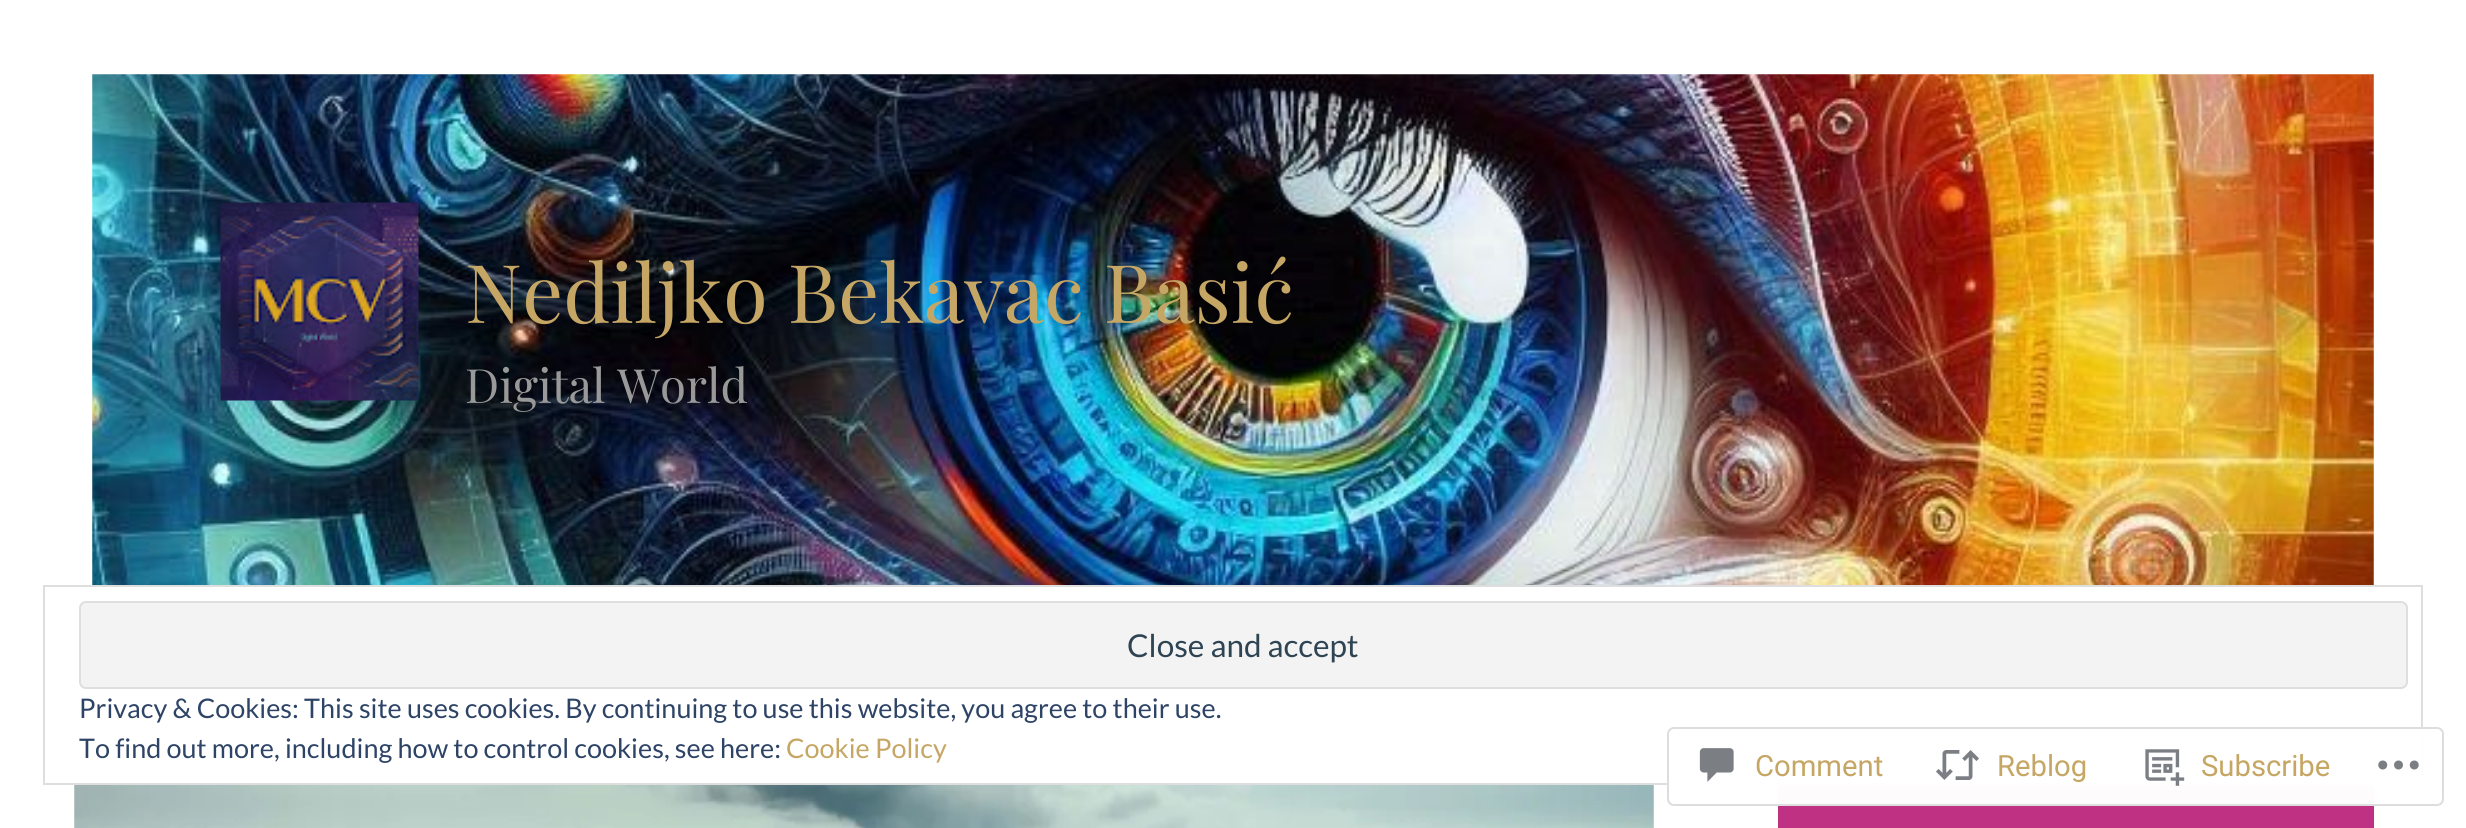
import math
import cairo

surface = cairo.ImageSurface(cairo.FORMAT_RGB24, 2466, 828)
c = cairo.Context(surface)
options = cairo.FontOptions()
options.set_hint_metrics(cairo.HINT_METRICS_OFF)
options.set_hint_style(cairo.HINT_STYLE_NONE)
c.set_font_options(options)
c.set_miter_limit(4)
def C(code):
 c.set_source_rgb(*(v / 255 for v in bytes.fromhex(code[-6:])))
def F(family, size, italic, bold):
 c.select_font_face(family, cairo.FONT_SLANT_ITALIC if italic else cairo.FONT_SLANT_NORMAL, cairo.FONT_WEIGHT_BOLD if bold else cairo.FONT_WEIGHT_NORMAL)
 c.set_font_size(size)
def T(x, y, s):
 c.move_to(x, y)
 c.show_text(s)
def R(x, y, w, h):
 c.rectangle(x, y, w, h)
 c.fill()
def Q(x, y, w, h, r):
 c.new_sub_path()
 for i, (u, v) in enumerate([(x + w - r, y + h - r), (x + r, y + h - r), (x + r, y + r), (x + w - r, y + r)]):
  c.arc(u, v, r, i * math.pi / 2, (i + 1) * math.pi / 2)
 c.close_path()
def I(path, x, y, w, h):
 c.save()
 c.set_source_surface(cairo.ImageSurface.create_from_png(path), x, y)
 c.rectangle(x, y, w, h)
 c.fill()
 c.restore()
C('ffffff')
c.paint()
I('1.png',92,74,2282,511)
I('2.png',220,202,199,199)
F('Playfair Display',81,0,0)
C('c6a664')
T(465,323,'Nediljko Bekavac Basić')
F('Playfair Display',47.25,0,0)
C('999999')
T(465,403,'Digital World')
I('3.png',74,785,1580,43)
C('be3183')
R(1778,790,596,38)
C('d74e51')
R(1778,785,596,5)
c.rectangle(44,586,2378,198)
C('dedede')
c.stroke()
C('f3f3f3')
Q(80,602,2327,86,6)
c.fill_preserve()
C('dedede')
c.stroke()
F('Lato',31.5,0,0)
C('2e4453')
T(1127,657,'Close and accept')
F('Lato',27,0,0)
C('2e4467')
T(79,718,'Privacy & Cookies: This site uses cookies. By continuing to use this website, you agree to their use.')
T(79,758,'To find out more, including how to control cookies, see here:')
C('c6a664')
T(786,758,'Cookie Policy')
c.set_source_rgba(1,1,1,0.98)
Q(1667,727,777,79,7)
c.fill()
Q(1668,728,775,77,6)
c.set_source_rgba(0.863,0.863,0.871,0.98)
c.stroke()
I('4.png',1699,748,35,34)
F('Roboto',29.25,0,0)
C('c6a664')
T(1755,776,'Comment')
I('5.png',1936,750,43,30)
T(1997,776,'Reblog')
I('6.png',2145,749,40,37)
T(2201,776,'Subscribe')
I('7.png',2378,760,41,10)
surface.write_to_png('o.png')
